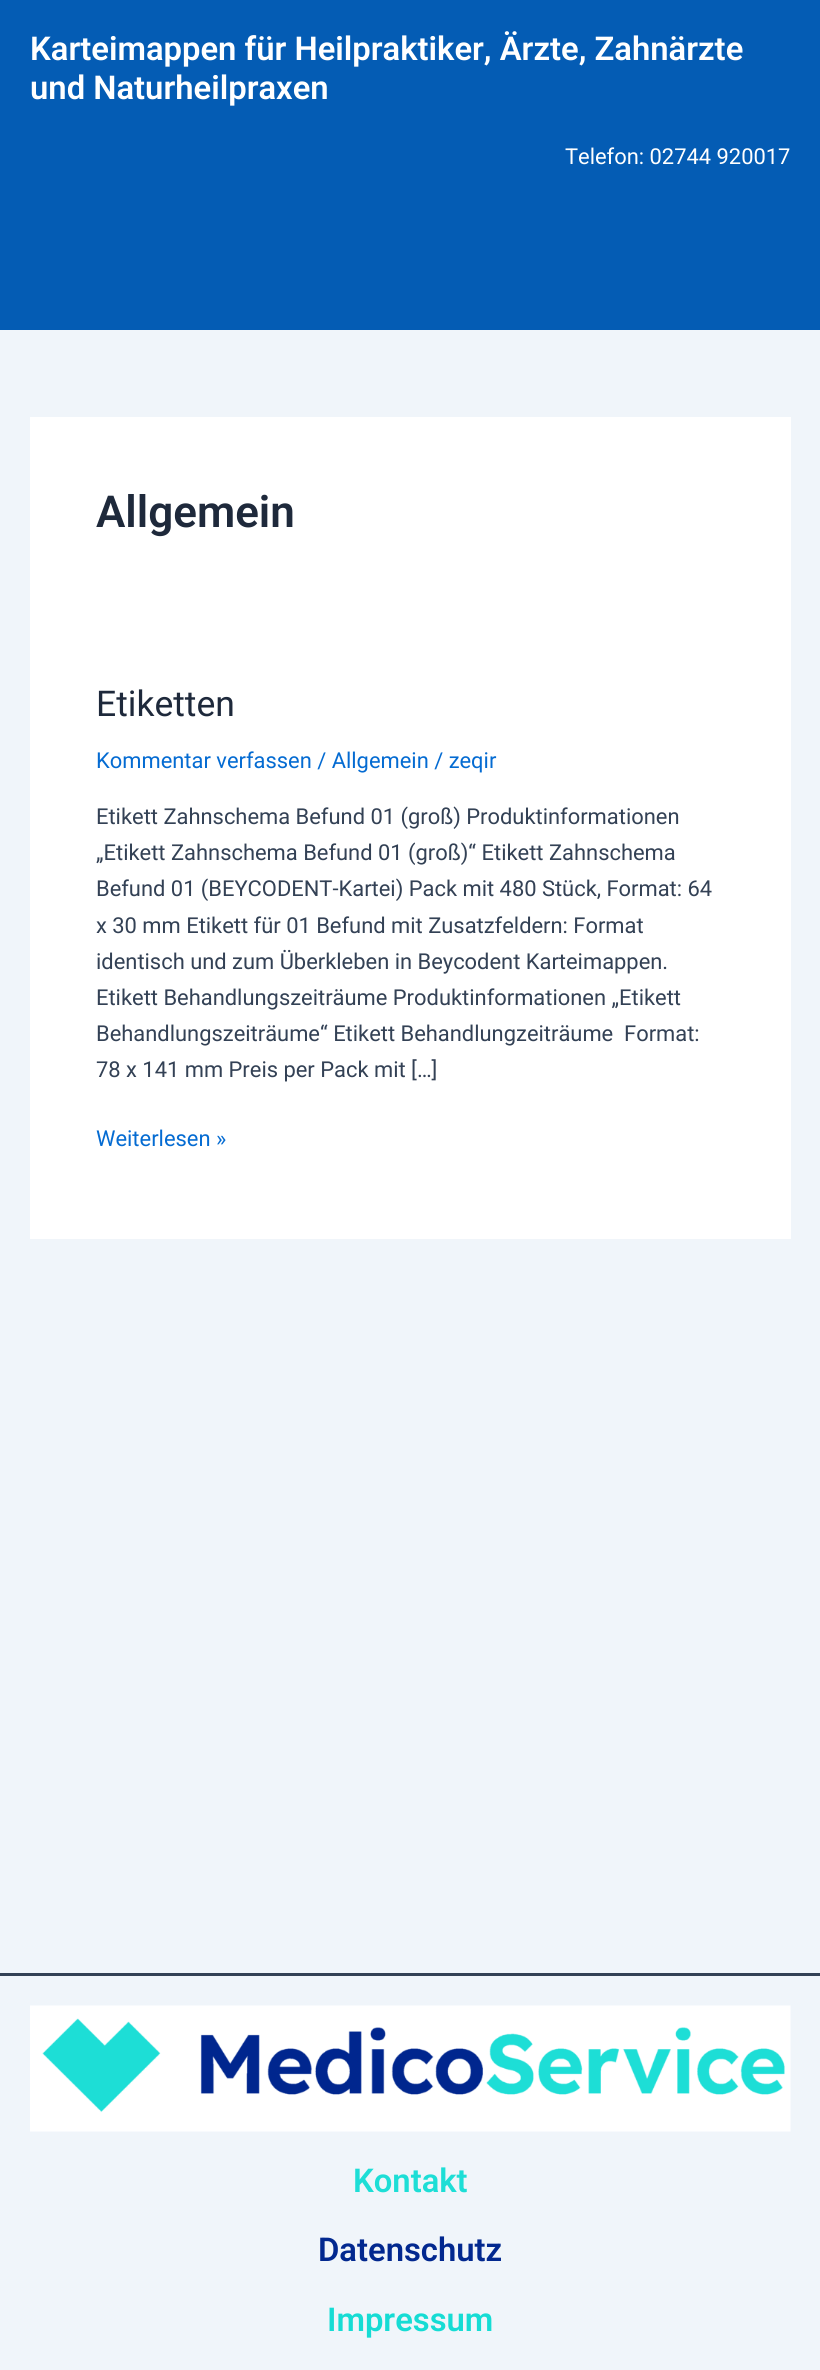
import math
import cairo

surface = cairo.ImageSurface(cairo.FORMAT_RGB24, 820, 2370)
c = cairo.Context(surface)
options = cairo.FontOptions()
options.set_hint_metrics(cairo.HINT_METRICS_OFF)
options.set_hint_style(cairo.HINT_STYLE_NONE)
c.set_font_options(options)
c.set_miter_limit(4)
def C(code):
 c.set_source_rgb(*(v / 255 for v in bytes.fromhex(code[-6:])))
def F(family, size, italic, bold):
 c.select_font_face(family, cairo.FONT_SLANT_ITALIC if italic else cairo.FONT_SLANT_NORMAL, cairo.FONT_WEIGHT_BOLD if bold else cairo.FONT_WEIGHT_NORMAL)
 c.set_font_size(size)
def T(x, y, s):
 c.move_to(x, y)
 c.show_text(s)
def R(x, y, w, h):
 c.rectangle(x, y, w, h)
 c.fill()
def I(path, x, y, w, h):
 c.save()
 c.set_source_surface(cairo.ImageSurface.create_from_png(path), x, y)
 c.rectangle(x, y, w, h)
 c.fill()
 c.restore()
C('f0f5fa')
c.paint()
C('045cb4')
R(0,0,820,330)
F('Roboto SemiBold',32.8,0,0)
C('ffffff')
T(30,60,'Karteimappen für Heilpraktiker, Ärzte, Zahnärzte')
T(30,99,'und Naturheilpraxen')
F('Roboto',21.9,0,0)
T(565,164,'Telefon: 02744 920017')
R(30,417,761,822)
F('Roboto SemiBold',44,0,0)
C('1e293b')
T(96,527,'Allgemein')
F('Roboto',35.5,0,0)
T(96,716,'Etiketten')
F('Roboto',21.9,0,0)
C('046bd2')
T(96,768,'Kommentar verfassen / Allgemein / zeqir')
C('334155')
T(96,824,'Etikett Zahnschema Befund 01 (groß) Produktinformationen')
T(96,860,'„Etikett Zahnschema Befund 01 (groß)“ Etikett Zahnschema')
T(96,896,'Befund 01 (BEYCODENT-Kartei) Pack mit 480 Stück, Format: 64')
T(96,933,'x 30 mm Etikett für 01 Befund mit Zusatzfeldern: Format')
T(96,969,'identisch und zum Überkleben in Beycodent Karteimappen.')
T(96,1005,'Etikett Behandlungszeiträume Produktinformationen „Etikett')
T(96,1041,'Behandlungszeiträume“ Etikett Behandlungzeiträume  Format:')
T(96,1077,'78 x 141 mm Preis per Pack mit […]')
C('046bd2')
T(96,1146,'Weiterlesen »')
C('334155')
R(0,1973,820,3)
I('1.png',30,2005,761,127)
F('Roboto SemiBold',32.8,0,0)
C('1dded6')
T(353,2192,'Kontakt')
C('02288f')
T(318,2261,'Datenschutz')
C('16dcd4')
T(327,2331,'Impressum')
surface.write_to_png('o.png')
